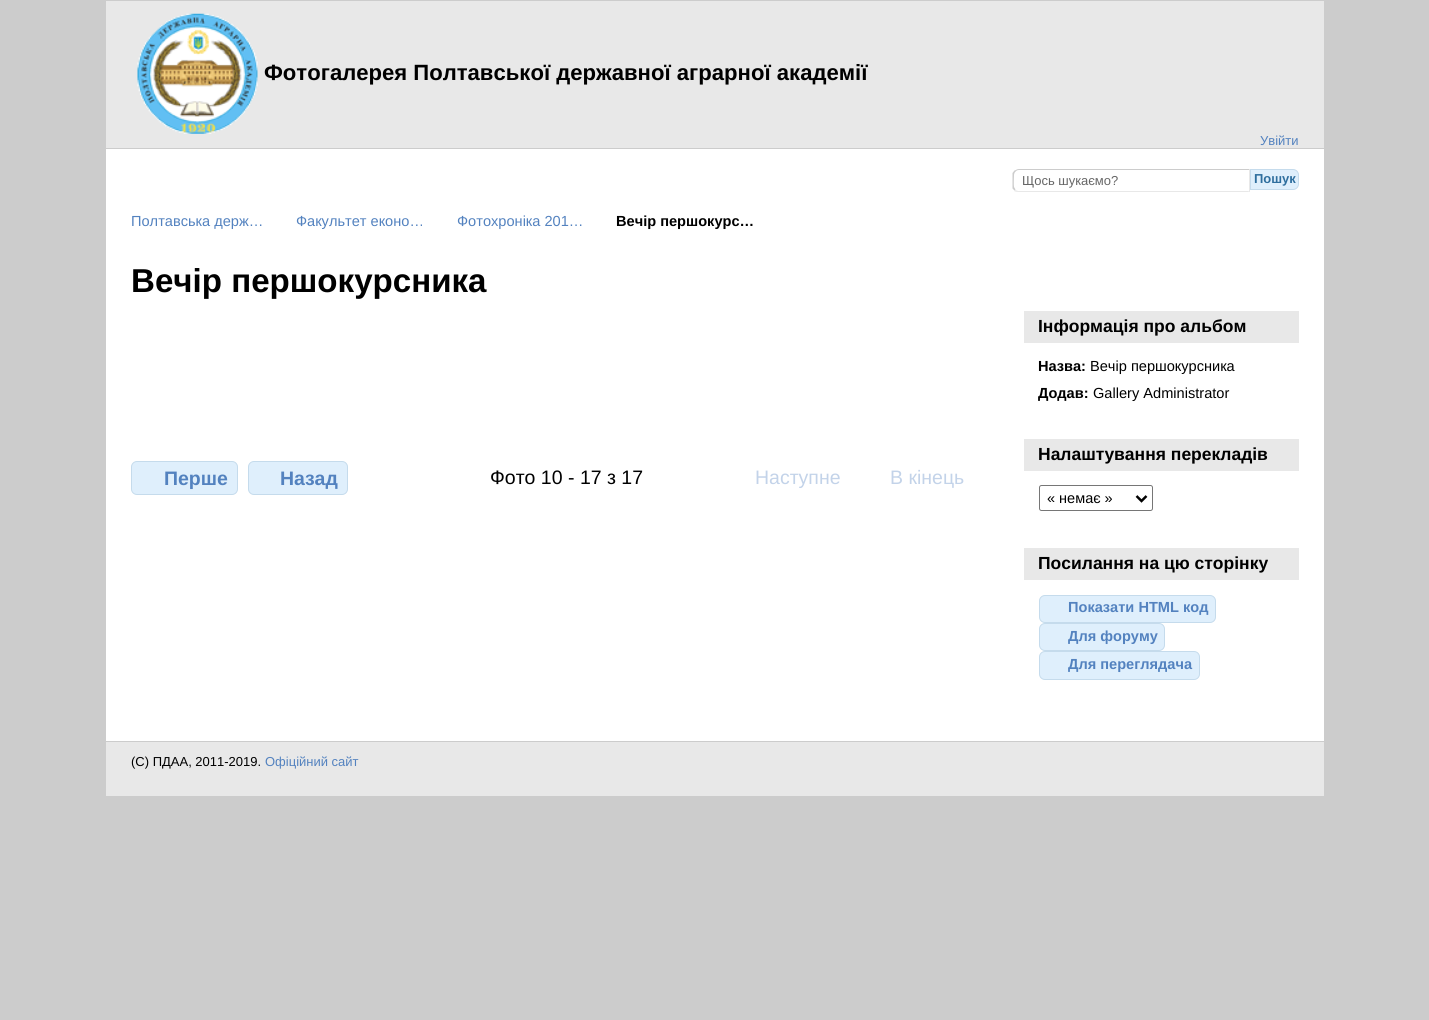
import math
import cairo

surface = cairo.ImageSurface(cairo.FORMAT_RGB24, 1429, 1020)
c = cairo.Context(surface)
options = cairo.FontOptions()
options.set_hint_metrics(cairo.HINT_METRICS_OFF)
options.set_hint_style(cairo.HINT_STYLE_NONE)
c.set_font_options(options)
c.set_miter_limit(4)
def C(code):
 c.set_source_rgb(*(v / 255 for v in bytes.fromhex(code[-6:])))
def F(family, size, italic, bold):
 c.select_font_face(family, cairo.FONT_SLANT_ITALIC if italic else cairo.FONT_SLANT_NORMAL, cairo.FONT_WEIGHT_BOLD if bold else cairo.FONT_WEIGHT_NORMAL)
 c.set_font_size(size)
def T(x, y, s):
 c.move_to(x, y)
 c.show_text(s)
def R(x, y, w, h):
 c.rectangle(x, y, w, h)
 c.fill()
def Q(x, y, w, h, r):
 c.new_sub_path()
 for i, (u, v) in enumerate([(x + w - r, y + h - r), (x + r, y + h - r), (x + r, y + r), (x + w - r, y + r)]):
  c.arc(u, v, r, i * math.pi / 2, (i + 1) * math.pi / 2)
 c.close_path()
def I(path, x, y, w, h):
 c.save()
 c.set_source_surface(cairo.ImageSurface.create_from_png(path), x, y)
 c.rectangle(x, y, w, h)
 c.fill()
 c.restore()
C('cccccc')
c.paint()
C('ffffff')
R(106,149,1218,592)
C('e8e8e8')
R(106,1,1218,147)
I('1.png',137,13,121,121)
F('Liberation Sans',22.1,0,1)
C('000000')
T(264,80,'Фотогалерея Полтавської державної аграрної академії')
F('Liberation Sans',13,0,0)
C('5382bf')
T(1260,145,'Увійти')
C('cccccc')
c.new_path()
c.move_to(1019,169)
c.curve_to(1017,169,1016,170,1014,171)
c.line_to(1015,172)
c.curve_to(1016,171,1017,170,1019,170)
c.line_to(1249,170)
c.line_to(1250,169)
c.close_path()
c.fill()
C('e8e8e8')
c.new_path()
c.move_to(1250,192)
c.line_to(1250,169)
c.line_to(1249,170)
c.line_to(1249,191)
c.line_to(1248.5,191)
c.line_to(1249.5,192)
c.close_path()
c.fill()
c.new_path()
c.move_to(1250,192)
c.line_to(1019,192)
c.curve_to(1017,192,1016,192,1014,191)
c.line_to(1015,190)
c.line_to(1018,191)
c.line_to(1248,191)
c.close_path()
c.fill()
C('cccccc')
c.new_path()
c.move_to(1012.5,173)
c.line_to(1014.5,170.5)
c.line_to(1015.5,171.5)
c.curve_to(1014.5,172.5,1014,174,1014,175)
c.curve_to(1014,177.5,1013.5,185,1014,187)
c.line_to(1015.5,189.5)
c.line_to(1014.5,190.5)
c.line_to(1012.5,188.5)
c.close_path()
c.fill()
C('666666')
T(1022,185,'Щось шукаємо?')
C('dfeffc')
c.new_path()
c.move_to(1250.5,169.5)
c.line_to(1293,169.5)
c.curve_to(1296,169.5,1298.5,172,1298.5,175)
c.line_to(1298.5,184)
c.curve_to(1298.5,187,1296,189.5,1293,189.5)
c.line_to(1250.5,189.5)
c.close_path()
c.fill_preserve()
C('c5dbec')
c.set_line_width(1)
c.stroke()
F('Liberation Sans',13,0,1)
C('2e6e9e')
T(1254,183,'Пошук')
F('Liberation Sans',14.6,0,0)
C('5382bf')
T(131,226,'Полтавська держ…')
T(296,226,'Факультет еконо…')
T(457,226,'Фотохроніка 201…')
F('Liberation Sans',14.6,0,1)
C('000000')
T(616,226,'Вечір першокурс…')
F('Liberation Sans',33.1,0,1)
T(131,292,'Вечір першокурсника')
C('dfeffc')
Q(131.5,461.5,106,33,5.5)
c.fill_preserve()
C('c5dbec')
c.stroke()
F('Liberation Sans',19.5,0,1)
C('5382bf')
T(164,485,'Перше')
C('dfeffc')
Q(248.5,461.5,99,33,5.5)
c.fill_preserve()
C('c5dbec')
c.stroke()
C('5382bf')
T(280,485,'Назад')
F('Liberation Sans',19.5,0,0)
C('000000')
T(490,484,'Фото 10 - 17 з 17')
C('c3d3e9')
T(755,484,'Наступне')
T(890,484,'В кінець')
C('e8e8e8')
R(1024,311,275,32)
F('Liberation Sans',17.5,0,1)
C('000000')
T(1038,332,'Інформація про альбом')
F('Liberation Sans',14.6,0,1)
T(1038,371,'Назва:')
F('Liberation Sans',14.6,0,0)
T(1090,371,'Вечір першокурсника')
F('Liberation Sans',14.6,0,1)
T(1038,398,'Додав:')
F('Liberation Sans',14.6,0,0)
T(1093,398,'Gallery Administrator')
C('e8e8e8')
R(1024,439,275,32)
F('Liberation Sans',17.5,0,1)
C('000000')
T(1038,460,'Налаштування перекладів')
Q(1039.5,485.5,113,25,2)
C('767676')
c.stroke()
c.new_path()
c.move_to(1136.5,496)
c.line_to(1141.5,501)
c.line_to(1146.5,496)
C('000000')
c.set_line_width(2.5)
c.stroke()
F('Liberation Sans',14.5,0,0)
T(1047,503,'« немає »')
C('e8e8e8')
R(1024,548,275,32)
F('Liberation Sans',17.5,0,1)
C('000000')
T(1038,569,'Посилання на цю сторінку')
C('dfeffc')
Q(1039.5,595.5,176,27,5.5)
c.fill_preserve()
C('c5dbec')
c.set_line_width(1)
c.stroke()
F('Liberation Sans',14.6,0,1)
C('5382bf')
T(1068,612,'Показати HTML код')
C('dfeffc')
Q(1039.5,623.5,125,27,5.5)
c.fill_preserve()
C('c5dbec')
c.stroke()
C('5382bf')
T(1068,641,'Для форуму')
C('dfeffc')
Q(1039.5,651.5,160,28,5.5)
c.fill_preserve()
C('c5dbec')
c.stroke()
C('5382bf')
T(1068,669,'Для переглядача')
C('e8e8e8')
R(106,742,1218,54)
F('Liberation Sans',13,0,0)
C('000000')
T(131,766,'(C) ПДАА, 2011-2019.')
C('5382bf')
T(265,766,'Офіційний сайт')
surface.write_to_png('o.png')
